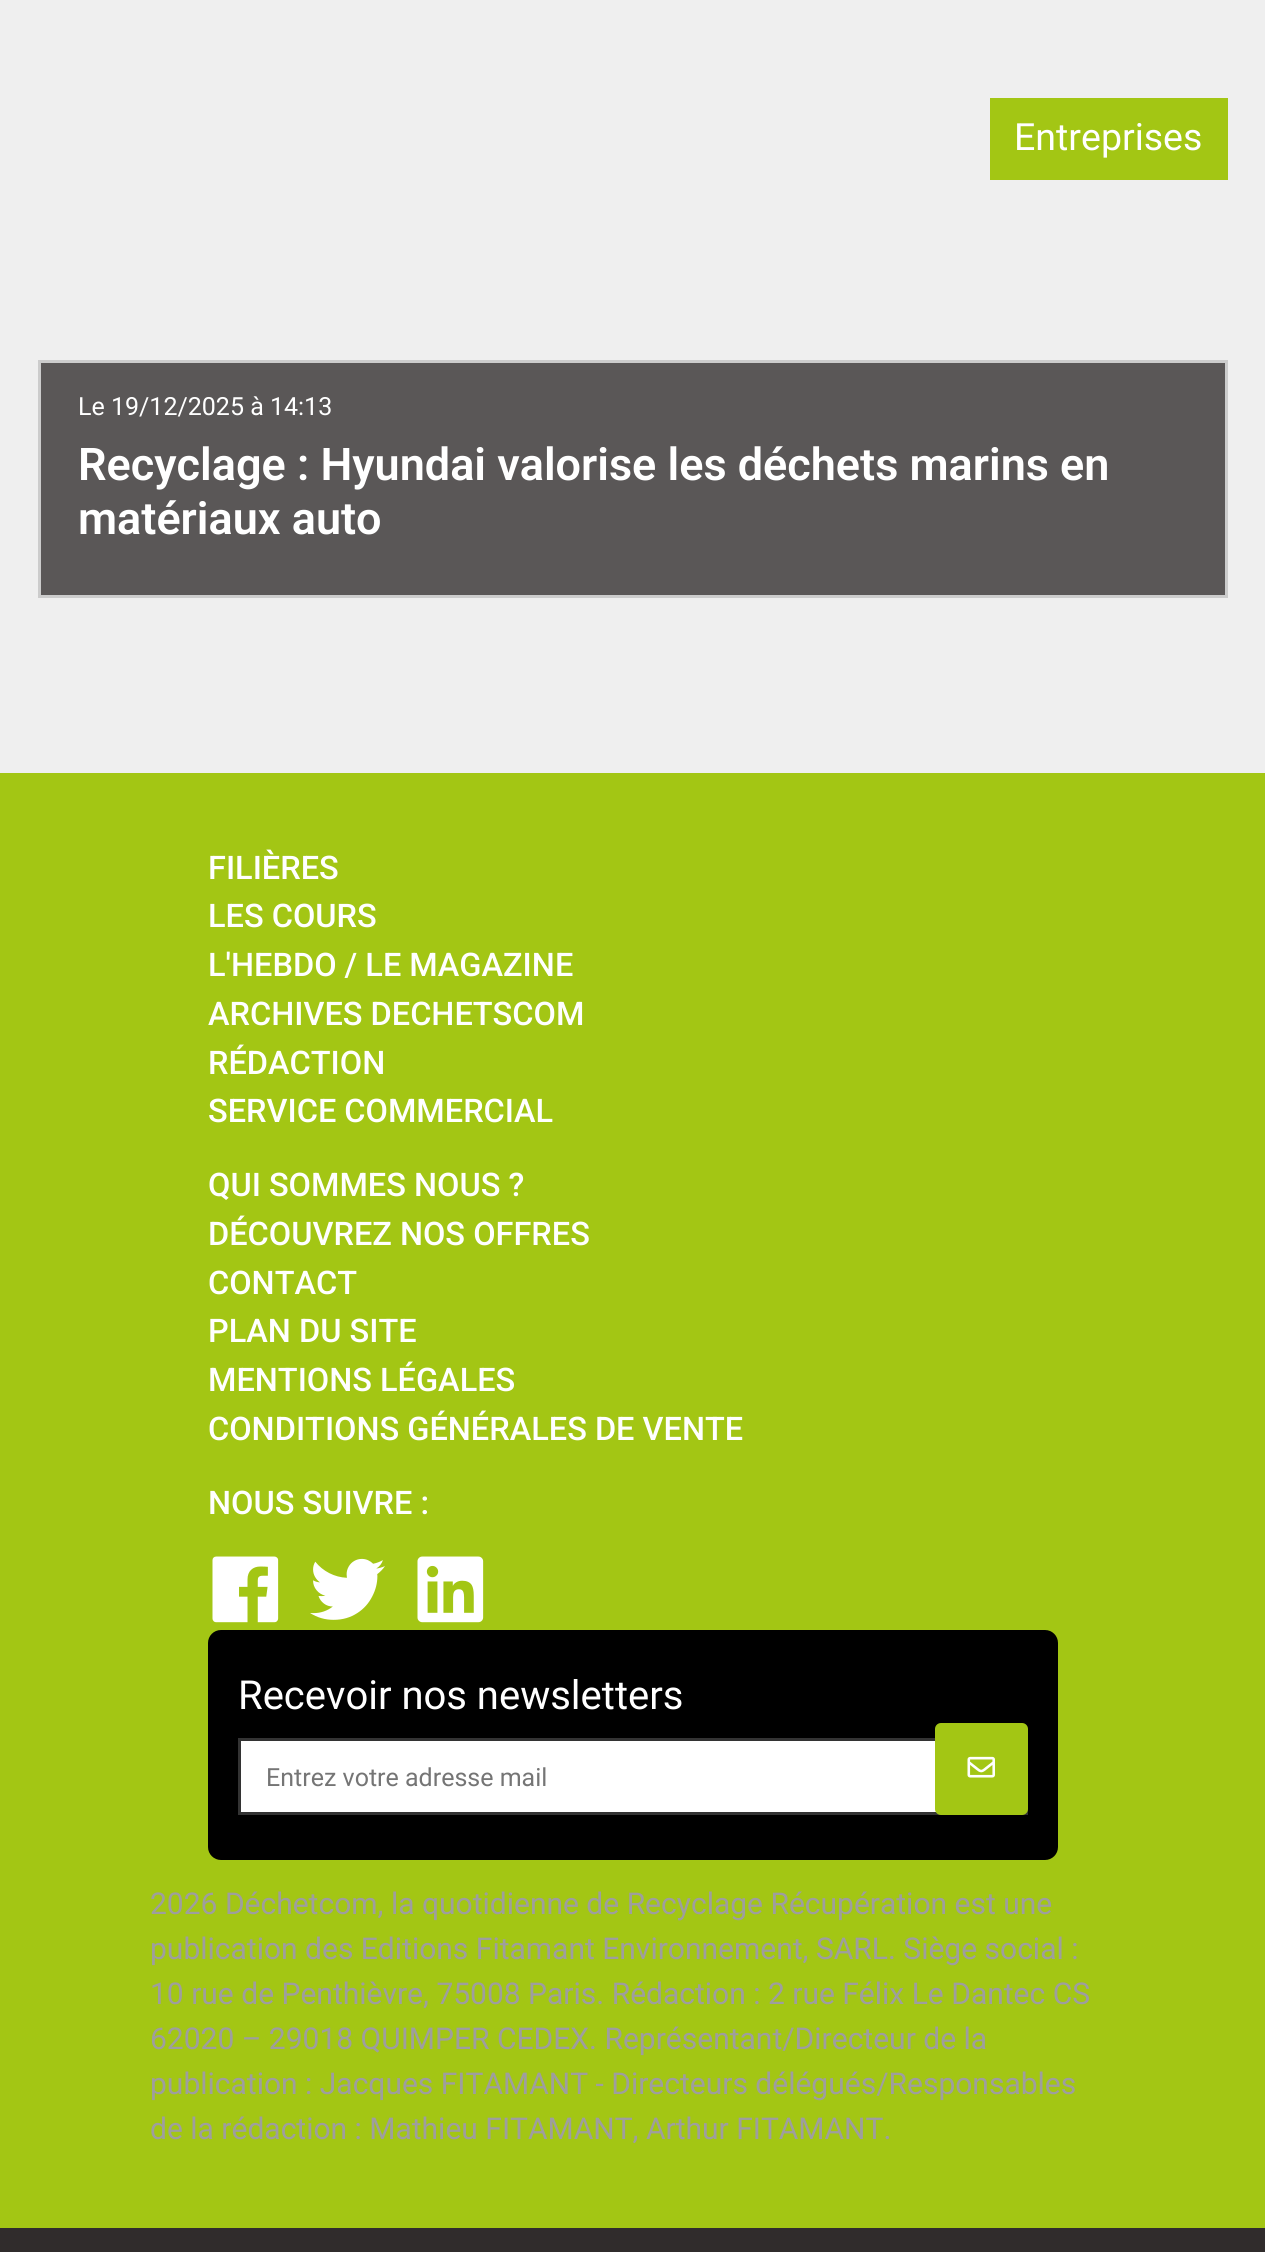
import math
import cairo

surface = cairo.ImageSurface(cairo.FORMAT_RGB24, 1265, 2252)
c = cairo.Context(surface)
options = cairo.FontOptions()
options.set_hint_metrics(cairo.HINT_METRICS_OFF)
options.set_hint_style(cairo.HINT_STYLE_NONE)
c.set_font_options(options)
c.set_miter_limit(4)
def C(code):
 c.set_source_rgb(*(v / 255 for v in bytes.fromhex(code[-6:])))
def F(family, size, italic, bold):
 c.select_font_face(family, cairo.FONT_SLANT_ITALIC if italic else cairo.FONT_SLANT_NORMAL, cairo.FONT_WEIGHT_BOLD if bold else cairo.FONT_WEIGHT_NORMAL)
 c.set_font_size(size)
def T(x, y, s):
 c.move_to(x, y)
 c.show_text(s)
def R(x, y, w, h):
 c.rectangle(x, y, w, h)
 c.fill()
def Q(x, y, w, h, r):
 c.new_sub_path()
 for i, (u, v) in enumerate([(x + w - r, y + h - r), (x + r, y + h - r), (x + r, y + r), (x + w - r, y + r)]):
  c.arc(u, v, r, i * math.pi / 2, (i + 1) * math.pi / 2)
 c.close_path()
def I(path, x, y, w, h):
 c.save()
 c.set_source_surface(cairo.ImageSurface.create_from_png(path), x, y)
 c.rectangle(x, y, w, h)
 c.fill()
 c.restore()
C('efefef')
c.paint()
C('a3c614')
R(990,98,238,82)
F('Roboto',37.5,0,0)
C('ffffff')
T(1014,150,'Entreprises')
C('5a5757')
c.rectangle(39.5,361.5,1187,235)
c.fill_preserve()
C('cccccc')
c.set_line_width(3)
c.stroke()
F('Roboto',25,0,0)
C('ffffff')
T(78,415,'Le 19/12/2025 à 14:13')
F('Roboto SemiBold',45,0,0)
T(78,480,'Recyclage : Hyundai valorise les déchets marins en')
T(78,534,'matériaux auto')
C('302c2c')
R(0,2228,1265,24)
C('a3c614')
R(0,773,1265,1455)
F('Roboto Medium',32.5,0,0)
C('ffffff')
T(208,879,'FILIÈRES')
T(208,927,'LES COURS')
T(208,976,'L\'HEBDO / LE MAGAZINE')
T(208,1025,'ARCHIVES DECHETSCOM')
T(208,1074,'RÉDACTION')
T(208,1122,'SERVICE COMMERCIAL')
T(208,1196,'QUI SOMMES NOUS ?')
T(208,1245,'DÉCOUVREZ NOS OFFRES')
T(208,1294,'CONTACT')
T(208,1342,'PLAN DU SITE')
T(208,1391,'MENTIONS LÉGALES')
T(208,1440,'CONDITIONS GÉNÉRALES DE VENTE')
T(208,1514,'NOUS SUIVRE :')
I('1.png',212,1556,67,67)
I('2.png',310,1558,75,62)
I('3.png',417,1556,67,67)
C('000000')
Q(208,1630,850,230,13)
c.fill()
F('Roboto',40,0,0)
C('ffffff')
T(238,1709,'Recevoir nos newsletters')
R(241,1741,695,71)
c.rectangle(239.5,1739.5,787,74)
C('333333')
c.stroke()
F('Roboto',25,0,0)
C('757575')
T(266,1786,'Entrez votre adresse mail')
C('a3c614')
Q(935,1723,93,92,6)
c.fill()
I('4.png',967,1756,28,22)
F('Roboto',30,0,0)
C('9e9e9e')
T(150,1914,'2026 Déchetcom, la quotidienne de Recyclage Récupération est une')
T(150,1959,'publication des Editions Fitamant Environnement, SARL. Siège social :')
T(150,2004,'10 rue de Penthièvre, 75008 Paris. Rédaction : 2 rue Félix Le Dantec CS')
T(150,2049,'62020 – 29018 QUIMPER CEDEX. Représentant/Directeur de la')
T(150,2094,'publication : Jacques FITAMANT - Directeurs délégués/Responsables')
T(150,2139,'de la rédaction : Mathieu FITAMANT, Arthur FITAMANT.')
surface.write_to_png('o.png')
